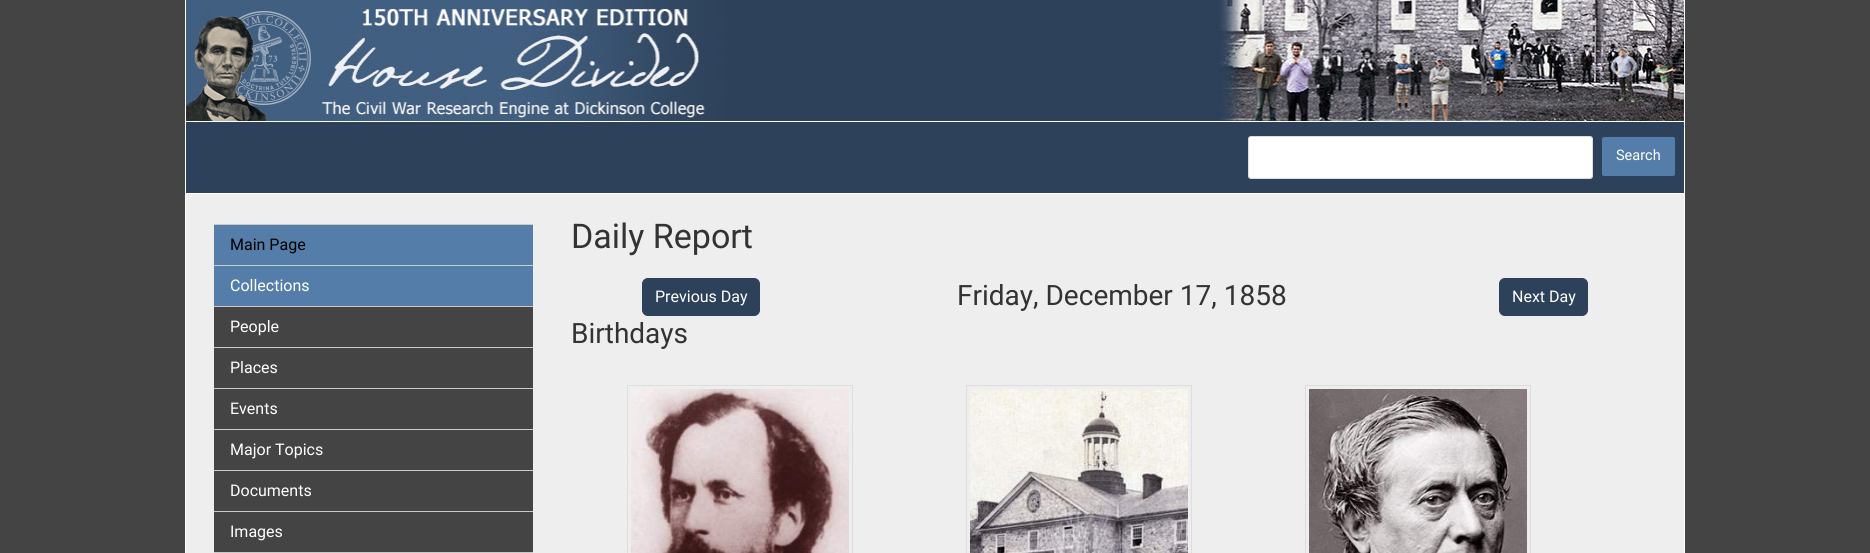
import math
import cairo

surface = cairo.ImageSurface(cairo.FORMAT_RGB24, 1870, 553)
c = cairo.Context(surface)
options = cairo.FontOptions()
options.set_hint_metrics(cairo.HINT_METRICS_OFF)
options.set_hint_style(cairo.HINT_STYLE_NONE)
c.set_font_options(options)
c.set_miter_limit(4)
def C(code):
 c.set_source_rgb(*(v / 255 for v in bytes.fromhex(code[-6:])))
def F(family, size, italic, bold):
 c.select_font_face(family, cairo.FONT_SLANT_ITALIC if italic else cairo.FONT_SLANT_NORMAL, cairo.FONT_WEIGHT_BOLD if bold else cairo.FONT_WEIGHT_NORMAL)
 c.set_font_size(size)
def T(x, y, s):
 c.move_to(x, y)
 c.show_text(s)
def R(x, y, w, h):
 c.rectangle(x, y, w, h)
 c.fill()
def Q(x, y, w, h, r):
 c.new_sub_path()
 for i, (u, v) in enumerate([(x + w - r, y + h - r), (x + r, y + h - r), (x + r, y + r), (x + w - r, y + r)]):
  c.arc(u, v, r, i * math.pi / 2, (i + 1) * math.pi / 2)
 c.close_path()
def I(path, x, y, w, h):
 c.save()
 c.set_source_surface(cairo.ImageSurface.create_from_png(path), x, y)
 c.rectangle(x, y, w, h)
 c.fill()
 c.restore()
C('444444')
c.paint()
C('ffffff')
R(185,0,1500,553)
I('1.png',186,0,1498,121)
C('2d415a')
R(186,122,1498,71)
C('ffffff')
Q(1248.5,136.5,344,42,2.5)
c.fill_preserve()
C('dddddd')
c.set_line_width(1)
c.stroke()
C('547ea9')
Q(1601.5,136.5,74,40,2.5)
c.fill_preserve()
C('2d415a')
c.stroke()
F('Roboto',14.5,0,0)
C('ffffff')
T(1616,160,'Search')
C('eeeeee')
R(186,194,1498,359)
C('cacaca')
R(214,224,319,1)
R(214,265,319,1)
C('547ea9')
R(214,225,319,40)
F('Roboto',16,0,0)
C('000000')
T(230,250,'Main Page')
C('cacaca')
R(214,306,319,1)
C('547ea9')
R(214,266,319,40)
C('ffffff')
T(230,291,'Collections')
C('cacaca')
R(214,347,319,1)
C('444444')
R(214,307,319,40)
C('ffffff')
T(230,332,'People')
C('cacaca')
R(214,388,319,1)
C('444444')
R(214,348,319,40)
C('ffffff')
T(230,373,'Places')
C('cacaca')
R(214,429,319,1)
C('444444')
R(214,389,319,40)
C('ffffff')
T(230,414,'Events')
C('cacaca')
R(214,470,319,1)
C('444444')
R(214,430,319,40)
C('ffffff')
T(230,455,'Major Topics')
C('cacaca')
R(214,511,319,1)
C('444444')
R(214,471,319,40)
C('ffffff')
T(230,496,'Documents')
C('cacaca')
R(214,552,319,1)
C('444444')
R(214,512,319,40)
C('ffffff')
T(230,537,'Images')
F('Roboto',34,0,0)
C('333333')
T(571,248,'Daily Report')
C('2d415a')
Q(642.5,278.5,117,37,5.5)
c.fill_preserve()
c.stroke()
F('Roboto',16,0,0)
C('ffffff')
T(655,302,'Previous Day')
F('Roboto',28,0,0)
C('333333')
T(957,305,'Friday, December 17, 1858')
C('2d415a')
Q(1499.5,278.5,88,37,5.5)
c.fill_preserve()
c.stroke()
F('Roboto',16,0,0)
C('ffffff')
T(1512,302,'Next Day')
F('Roboto',28,0,0)
C('333333')
T(571,343,'Birthdays')
c.rectangle(627.5,385.5,225,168)
C('dddddd')
c.stroke()
I('2.png',631,389,218,164)
c.rectangle(966.5,385.5,225,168)
c.stroke()
I('3.png',970,389,218,164)
c.rectangle(1305.5,385.5,225,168)
c.stroke()
I('4.png',1309,389,218,164)
surface.write_to_png('o.png')
